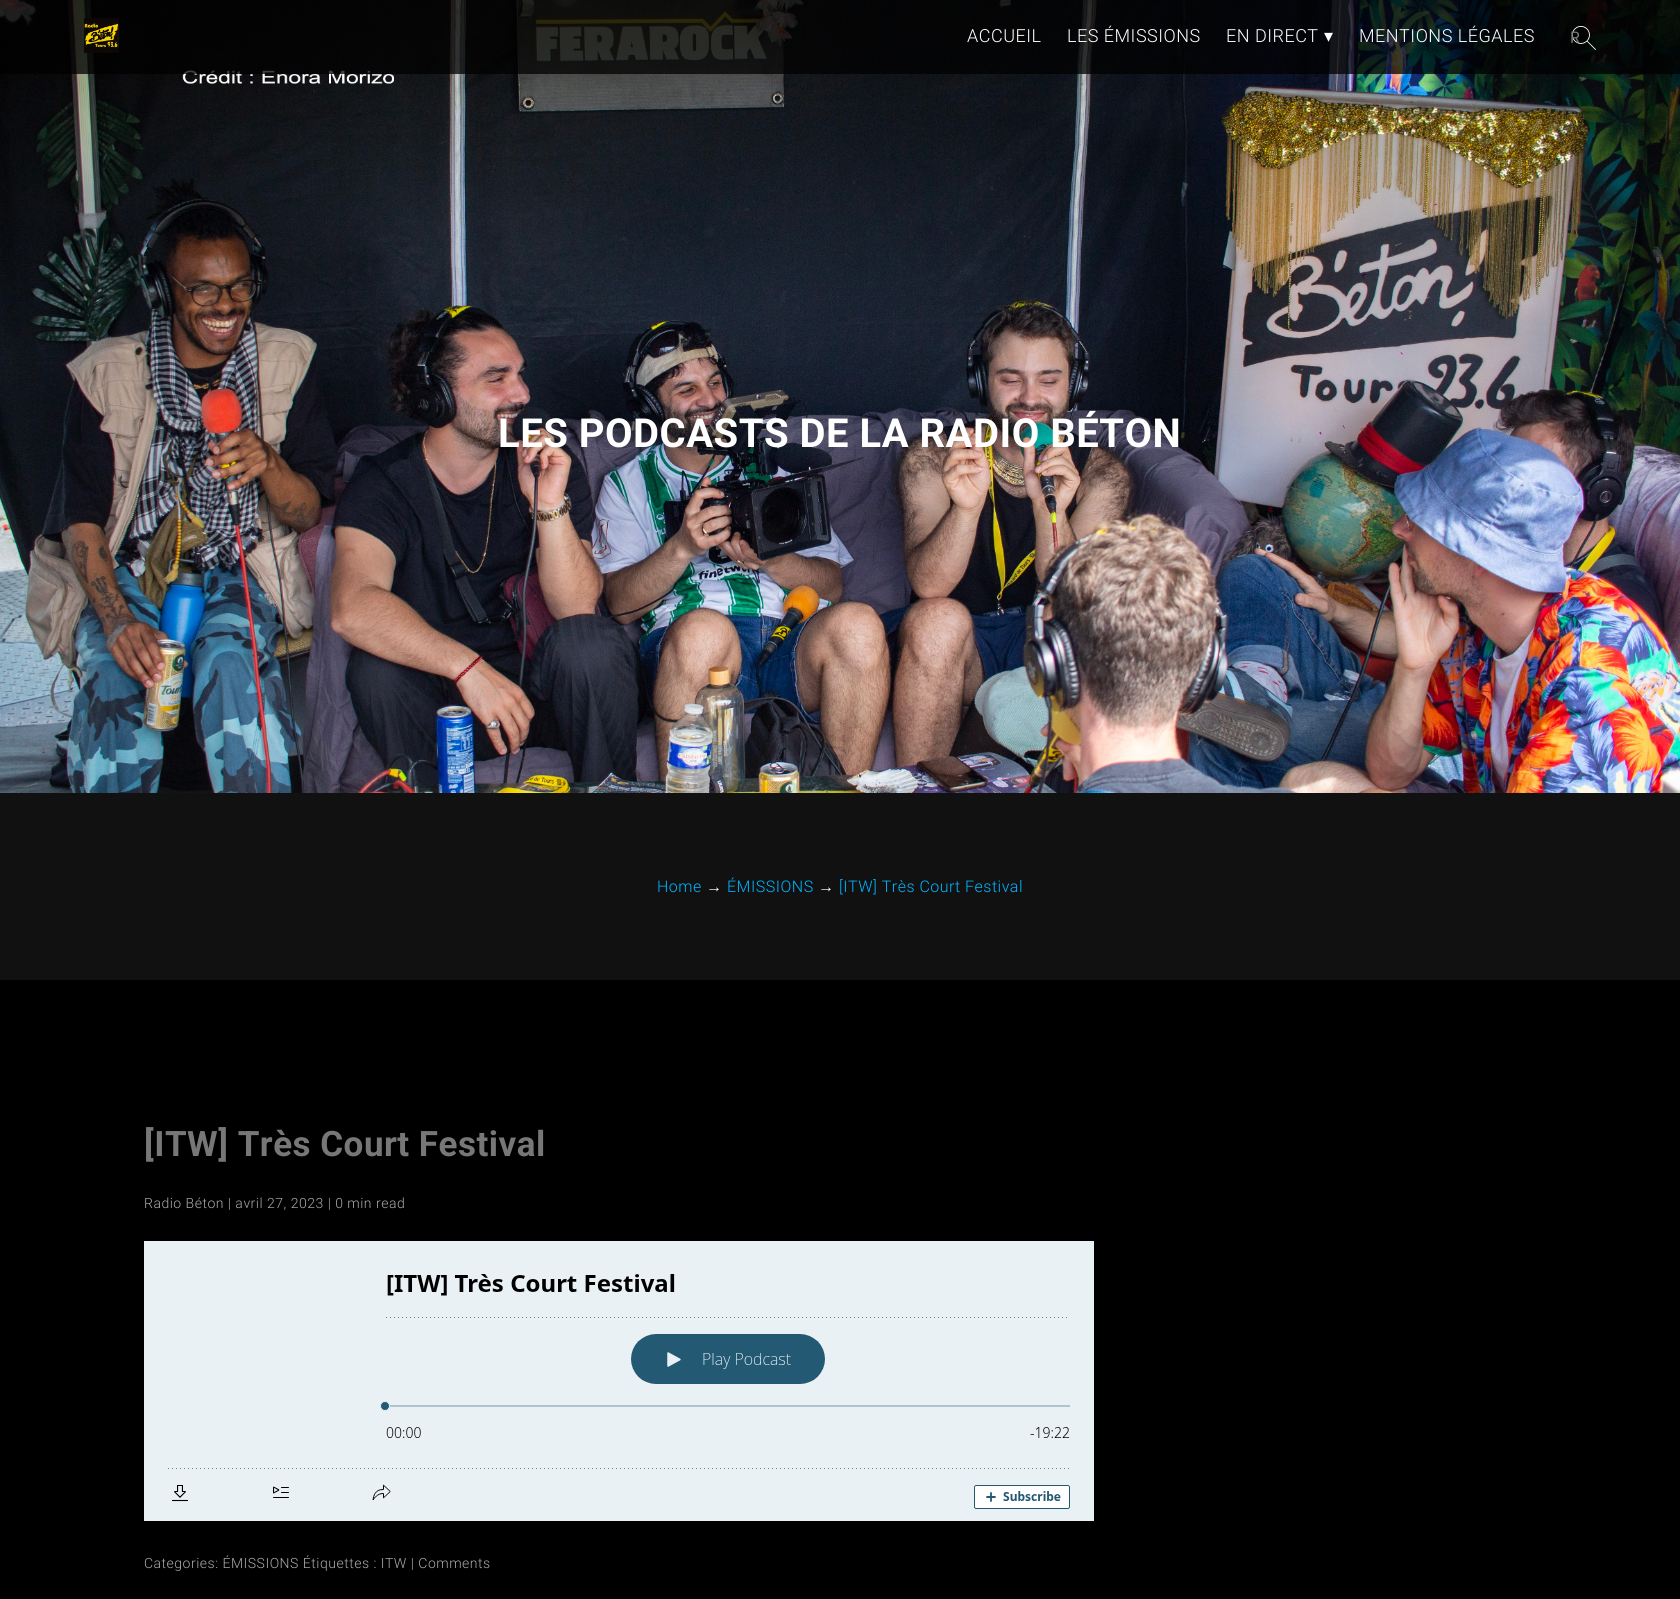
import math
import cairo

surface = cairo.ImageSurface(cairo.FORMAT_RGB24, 1680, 1599)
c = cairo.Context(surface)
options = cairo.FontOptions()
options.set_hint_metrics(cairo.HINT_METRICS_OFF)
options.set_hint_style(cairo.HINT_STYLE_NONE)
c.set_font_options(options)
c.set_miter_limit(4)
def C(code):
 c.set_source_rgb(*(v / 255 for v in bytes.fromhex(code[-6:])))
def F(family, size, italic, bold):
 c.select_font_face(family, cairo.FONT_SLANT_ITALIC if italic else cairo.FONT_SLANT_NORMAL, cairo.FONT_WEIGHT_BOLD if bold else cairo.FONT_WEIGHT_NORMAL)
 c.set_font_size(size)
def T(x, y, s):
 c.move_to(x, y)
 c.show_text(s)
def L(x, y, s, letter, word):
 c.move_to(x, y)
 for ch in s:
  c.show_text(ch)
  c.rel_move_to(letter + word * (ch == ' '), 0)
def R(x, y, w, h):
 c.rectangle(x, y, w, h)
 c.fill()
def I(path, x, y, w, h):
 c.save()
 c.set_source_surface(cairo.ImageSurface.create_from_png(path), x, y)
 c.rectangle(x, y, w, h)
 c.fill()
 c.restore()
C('111111')
c.paint()
I('1.png',0,0,1680,793)
c.set_source_rgba(0,0,0,0.75)
R(0,0,1680,74)
I('2.png',84,18,35,35)
F('Roboto Light',18,0,0)
C('ffffff')
L(967,42,'ACCUEIL',.5,0)
L(1067,42,'LES ÉMISSIONS',.5,0)
L(1226,42,'EN DIRECT',.5,0)
F('DejaVu Sans',18,0,0)
L(1324,42,'▾',.5,0)
F('Roboto Light',18,0,0)
L(1359,42,'MENTIONS LÉGALES',.5,0)
I('3.png',1572,26,24,24)
F('Roboto',16,0,0)
C('777777')
T(1570,43,'R')
F('Roboto',40,0,1)
C('ffffff')
L(498,447,'LES PODCASTS DE LA RADIO BÉTON',.5,0)
F('Roboto Light',16,0,0)
C('00b4ff')
L(657,892,'Home',.5,0)
F('Liberation Sans',16,0,0)
C('ffffff')
L(706,892,'→',.5,0)
F('Roboto Light',16,0,0)
C('00b4ff')
L(727,892,'ÉMISSIONS',.5,0)
F('Liberation Sans',16,0,0)
C('ffffff')
L(818,892,'→',.5,0)
F('Roboto Light',16,0,0)
C('00b4ff')
L(839,892,'[ITW] Très Court Festival',.5,0)
C('000000')
R(0,980,1680,619)
F('Roboto',35,0,1)
C('777777')
L(144,1156,'[ITW] Très Court Festival',.5,0)
F('Roboto Light',14,0,0)
C('aaaaaa')
L(144,1208,'Radio Béton | avril 27, 2023 | 0 min read',.5,0)
I('4.png',144,1241,950,280)
L(144,1568,'Categories: ÉMISSIONS Étiquettes : ITW | Comments',.5,0)
surface.write_to_png('o.png')
